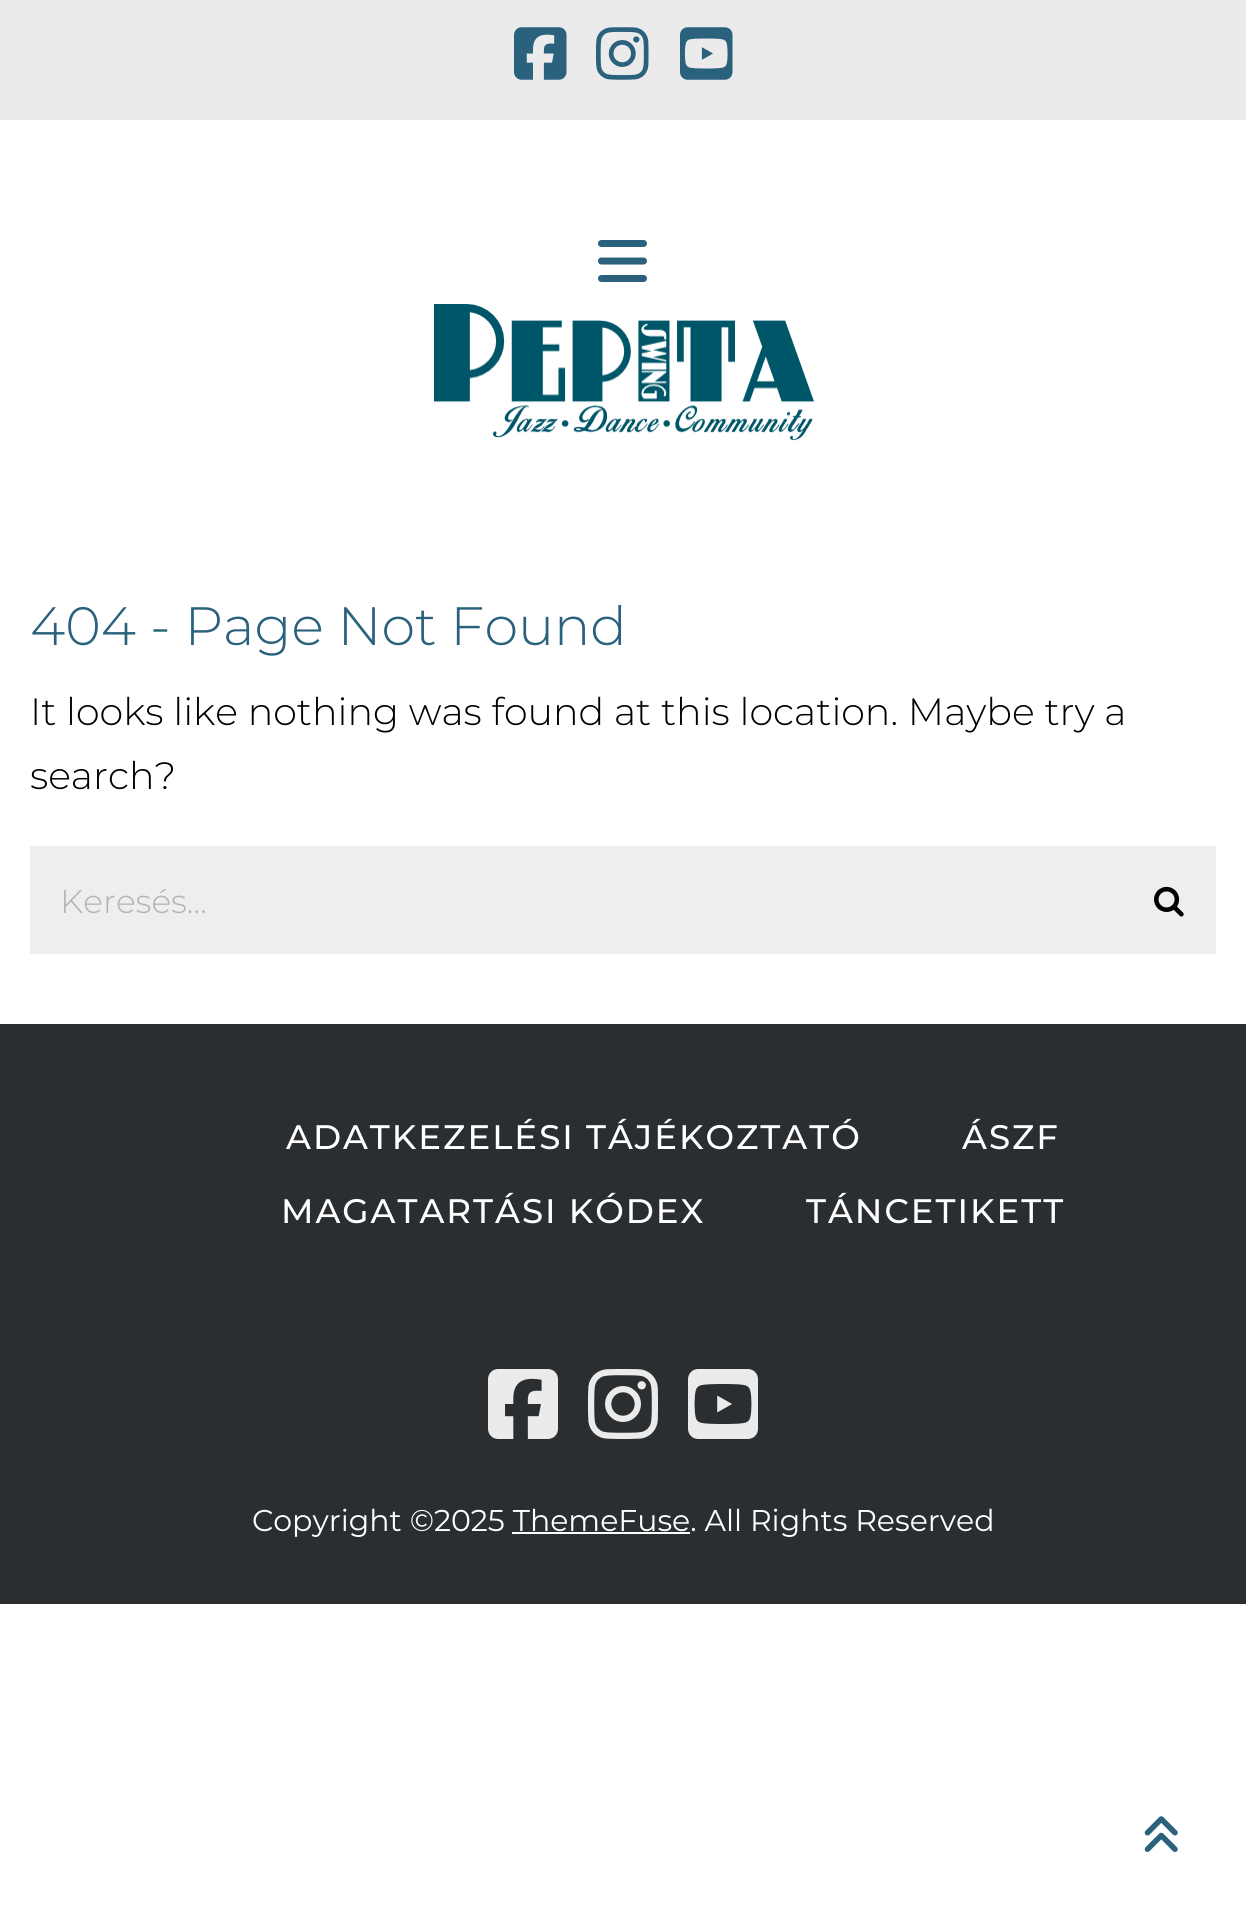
import math
import cairo

surface = cairo.ImageSurface(cairo.FORMAT_RGB24, 1246, 1917)
c = cairo.Context(surface)
options = cairo.FontOptions()
options.set_hint_metrics(cairo.HINT_METRICS_OFF)
options.set_hint_style(cairo.HINT_STYLE_NONE)
c.set_font_options(options)
c.set_miter_limit(4)
def C(code):
 c.set_source_rgb(*(v / 255 for v in bytes.fromhex(code[-6:])))
def F(family, size, italic, bold):
 c.select_font_face(family, cairo.FONT_SLANT_ITALIC if italic else cairo.FONT_SLANT_NORMAL, cairo.FONT_WEIGHT_BOLD if bold else cairo.FONT_WEIGHT_NORMAL)
 c.set_font_size(size)
def T(x, y, s):
 c.move_to(x, y)
 c.show_text(s)
def L(x, y, s, letter, word):
 c.move_to(x, y)
 for ch in s:
  c.show_text(ch)
  c.rel_move_to(letter + word * (ch == ' '), 0)
def R(x, y, w, h):
 c.rectangle(x, y, w, h)
 c.fill()
def I(path, x, y, w, h):
 c.save()
 c.set_source_surface(cairo.ImageSurface.create_from_png(path), x, y)
 c.rectangle(x, y, w, h)
 c.fill()
 c.restore()
C('ffffff')
c.paint()
C('ebebeb')
R(0,0,1246,120)
I('1.png',514,27,53,53)
I('2.png',596,27,53,53)
I('3.png',680,27,53,53)
I('4.png',598,240,49,42)
I('5.png',434,304,380,137)
F('Montserrat Light',54,0,0)
C('2a617c')
T(30,645,'404 - Page Not Found')
F('Montserrat Light',38,0,0)
C('000000')
T(30,725,'It looks like nothing was found at this location. Maybe try a')
T(30,789,'search?')
C('eeeeee')
R(30,846,1186,108)
F('Montserrat Light',33,0,0)
C('b3b3b3')
T(60,913,'Keresés…')
I('6.png',1154,886,30,31)
C('2a2e31')
R(0,1024,1246,580)
F('Montserrat Medium',34,0,0)
C('ffffff')
L(286,1149,'ADATKEZELÉSI TÁJÉKOZTATÓ',2,0)
L(962,1149,'ÁSZF',2,0)
L(281,1223,'MAGATARTÁSI KÓDEX',2,0)
L(806,1223,'TÁNCETIKETT',2,0)
I('7.png',488,1369,70,70)
I('8.png',588,1369,70,70)
I('9.png',688,1369,70,70)
F('Montserrat',30,0,0)
T(252,1531,'Copyright ©2025 ThemeFuse. All Rights Reserved')
R(512,1532,178,2)
I('10.png',1144,1816,34,36)
surface.write_to_png('o.png')
